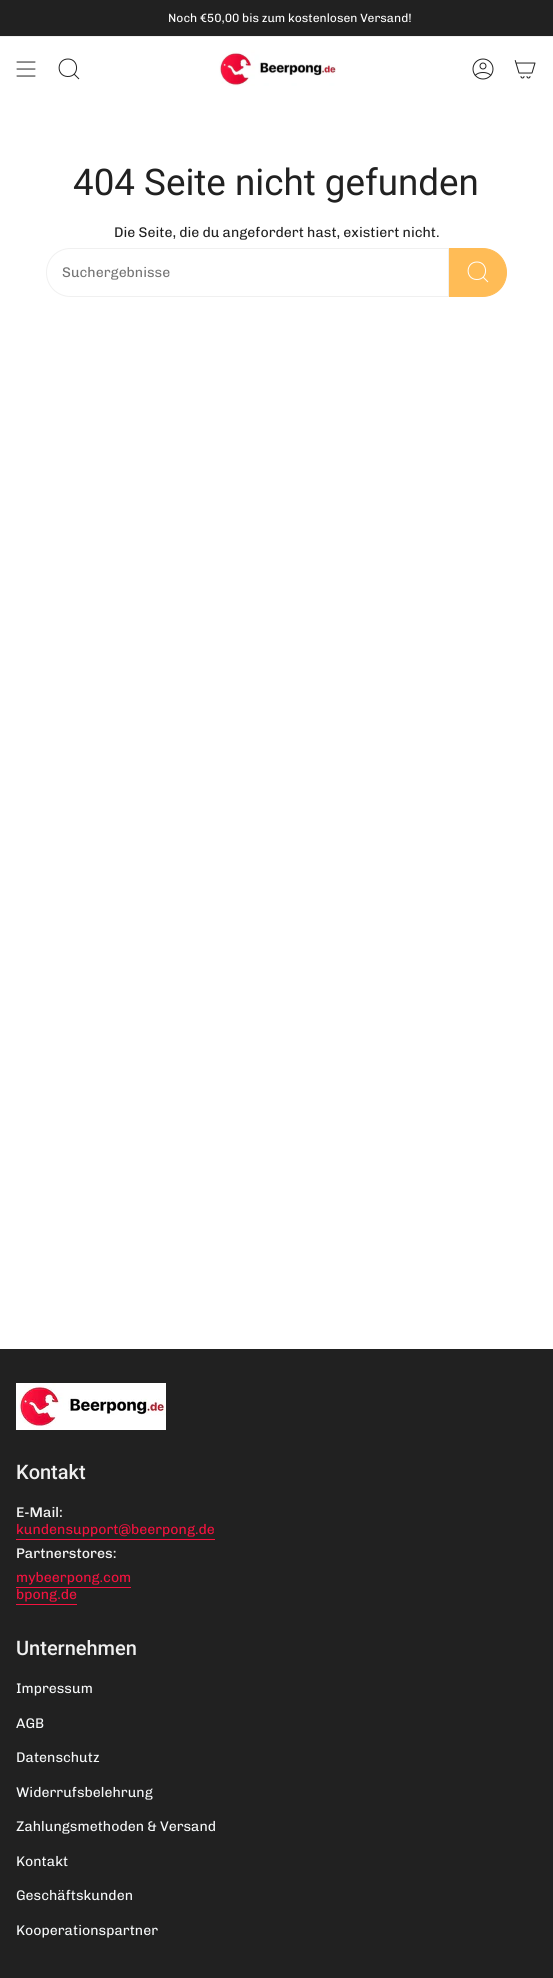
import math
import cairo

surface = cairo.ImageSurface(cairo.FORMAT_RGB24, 553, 1978)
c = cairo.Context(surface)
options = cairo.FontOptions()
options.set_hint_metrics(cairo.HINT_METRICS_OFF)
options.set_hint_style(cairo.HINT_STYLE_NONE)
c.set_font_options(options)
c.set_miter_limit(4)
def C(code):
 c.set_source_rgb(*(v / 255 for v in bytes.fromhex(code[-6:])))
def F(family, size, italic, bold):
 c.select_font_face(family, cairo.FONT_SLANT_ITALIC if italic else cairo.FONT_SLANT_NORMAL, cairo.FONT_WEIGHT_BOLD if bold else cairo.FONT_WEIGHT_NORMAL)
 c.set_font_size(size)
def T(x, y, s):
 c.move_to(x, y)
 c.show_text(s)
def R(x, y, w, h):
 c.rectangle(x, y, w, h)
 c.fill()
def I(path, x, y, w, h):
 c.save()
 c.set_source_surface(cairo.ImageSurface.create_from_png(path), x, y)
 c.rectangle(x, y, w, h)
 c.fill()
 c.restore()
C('ffffff')
c.paint()
C('212121')
R(0,0,553,36)
C('f0f0f0')
R(0,36,553,1)
F('Chivo',12,0,0)
C('ffffff')
T(168,22,'Noch €50,00 bis zum kostenlosen Versand!')
c.new_path()
c.move_to(17,62)
c.line_to(35,62)
c.move_to(17,69)
c.line_to(35,69)
c.move_to(17,76)
c.line_to(35,76)
C('212121')
c.set_line_width(1)
c.set_line_cap(cairo.LINE_CAP_ROUND)
c.set_line_join(cairo.LINE_JOIN_ROUND)
c.stroke()
c.new_path()
c.move_to(68,59)
c.curve_to(79.5,59,79.5,77,67.5,76.5)
c.curve_to(56,76,56.5,59,68,59)
c.close_path()
c.move_to(74,74)
c.line_to(79,79)
c.set_line_cap(cairo.LINE_CAP_BUTT)
c.set_line_join(cairo.LINE_JOIN_MITER)
c.stroke()
I('1.png',219,50,117,36)
I('2.png',472,58,22,22)
I('3.png',514,60,22,19)
F('Roboto',36.75,0,0)
T(73,195,'404 Seite nicht gefunden')
F('Chivo',14,0,0)
T(114,237,'Die Seite, die du angefordert hast, existiert nicht.')
c.new_path()
c.move_to(70.5,248.5)
c.line_to(448.5,248.5)
c.line_to(448.5,296.5)
c.line_to(70.5,296.5)
c.curve_to(57,296.5,46.5,286,46.5,272.5)
c.curve_to(46.5,259,57,248.5,70.5,248.5)
c.close_path()
C('f0f0f0')
c.stroke()
C('757575')
T(62,277,'Suchergebnisse')
C('ffbc56')
c.new_path()
c.move_to(449.5,248.5)
c.line_to(482.5,248.5)
c.curve_to(496,248.5,506.5,259,506.5,272.5)
c.curve_to(506.5,286,496,296.5,482.5,296.5)
c.line_to(449.5,296.5)
c.close_path()
c.fill_preserve()
c.stroke()
c.new_path()
c.move_to(477,262)
c.curve_to(488.5,262,488.5,280,476.5,279.5)
c.curve_to(465,279,465.5,262,477,262)
c.close_path()
c.move_to(483,277)
c.line_to(488,282)
C('ffffff')
c.stroke()
C('212121')
R(0,1349,553,629)
I('4.png',16,1383,150,47)
F('Roboto Medium',20,0,0)
C('f0f0f0')
T(16,1479,'Kontakt')
F('Chivo Medium',14,0,0)
T(16,1517,'E-Mail:')
F('Chivo',14,0,0)
C('f5123f')
T(16,1534,'kundensupport@beerpong.de')
R(16,1539,199,1)
F('Chivo Medium',14,0,0)
C('f0f0f0')
T(16,1558,'Partnerstores:')
F('Chivo',14,0,0)
C('f5123f')
T(16,1582,'mybeerpong.com')
R(16,1587,115,1)
T(16,1599,'bpong.de')
R(16,1604,61,1)
F('Roboto Medium',20,0,0)
C('f0f0f0')
T(16,1655,'Unternehmen')
F('Chivo',14,0,0)
C('f7f9fa')
T(16,1693,'Impressum')
T(16,1728,'AGB')
T(16,1762,'Datenschutz')
T(16,1797,'Widerrufsbelehrung')
T(16,1831,'Zahlungsmethoden & Versand')
T(16,1866,'Kontakt')
T(16,1900,'Geschäftskunden')
T(16,1935,'Kooperationspartner')
surface.write_to_png('o.png')
